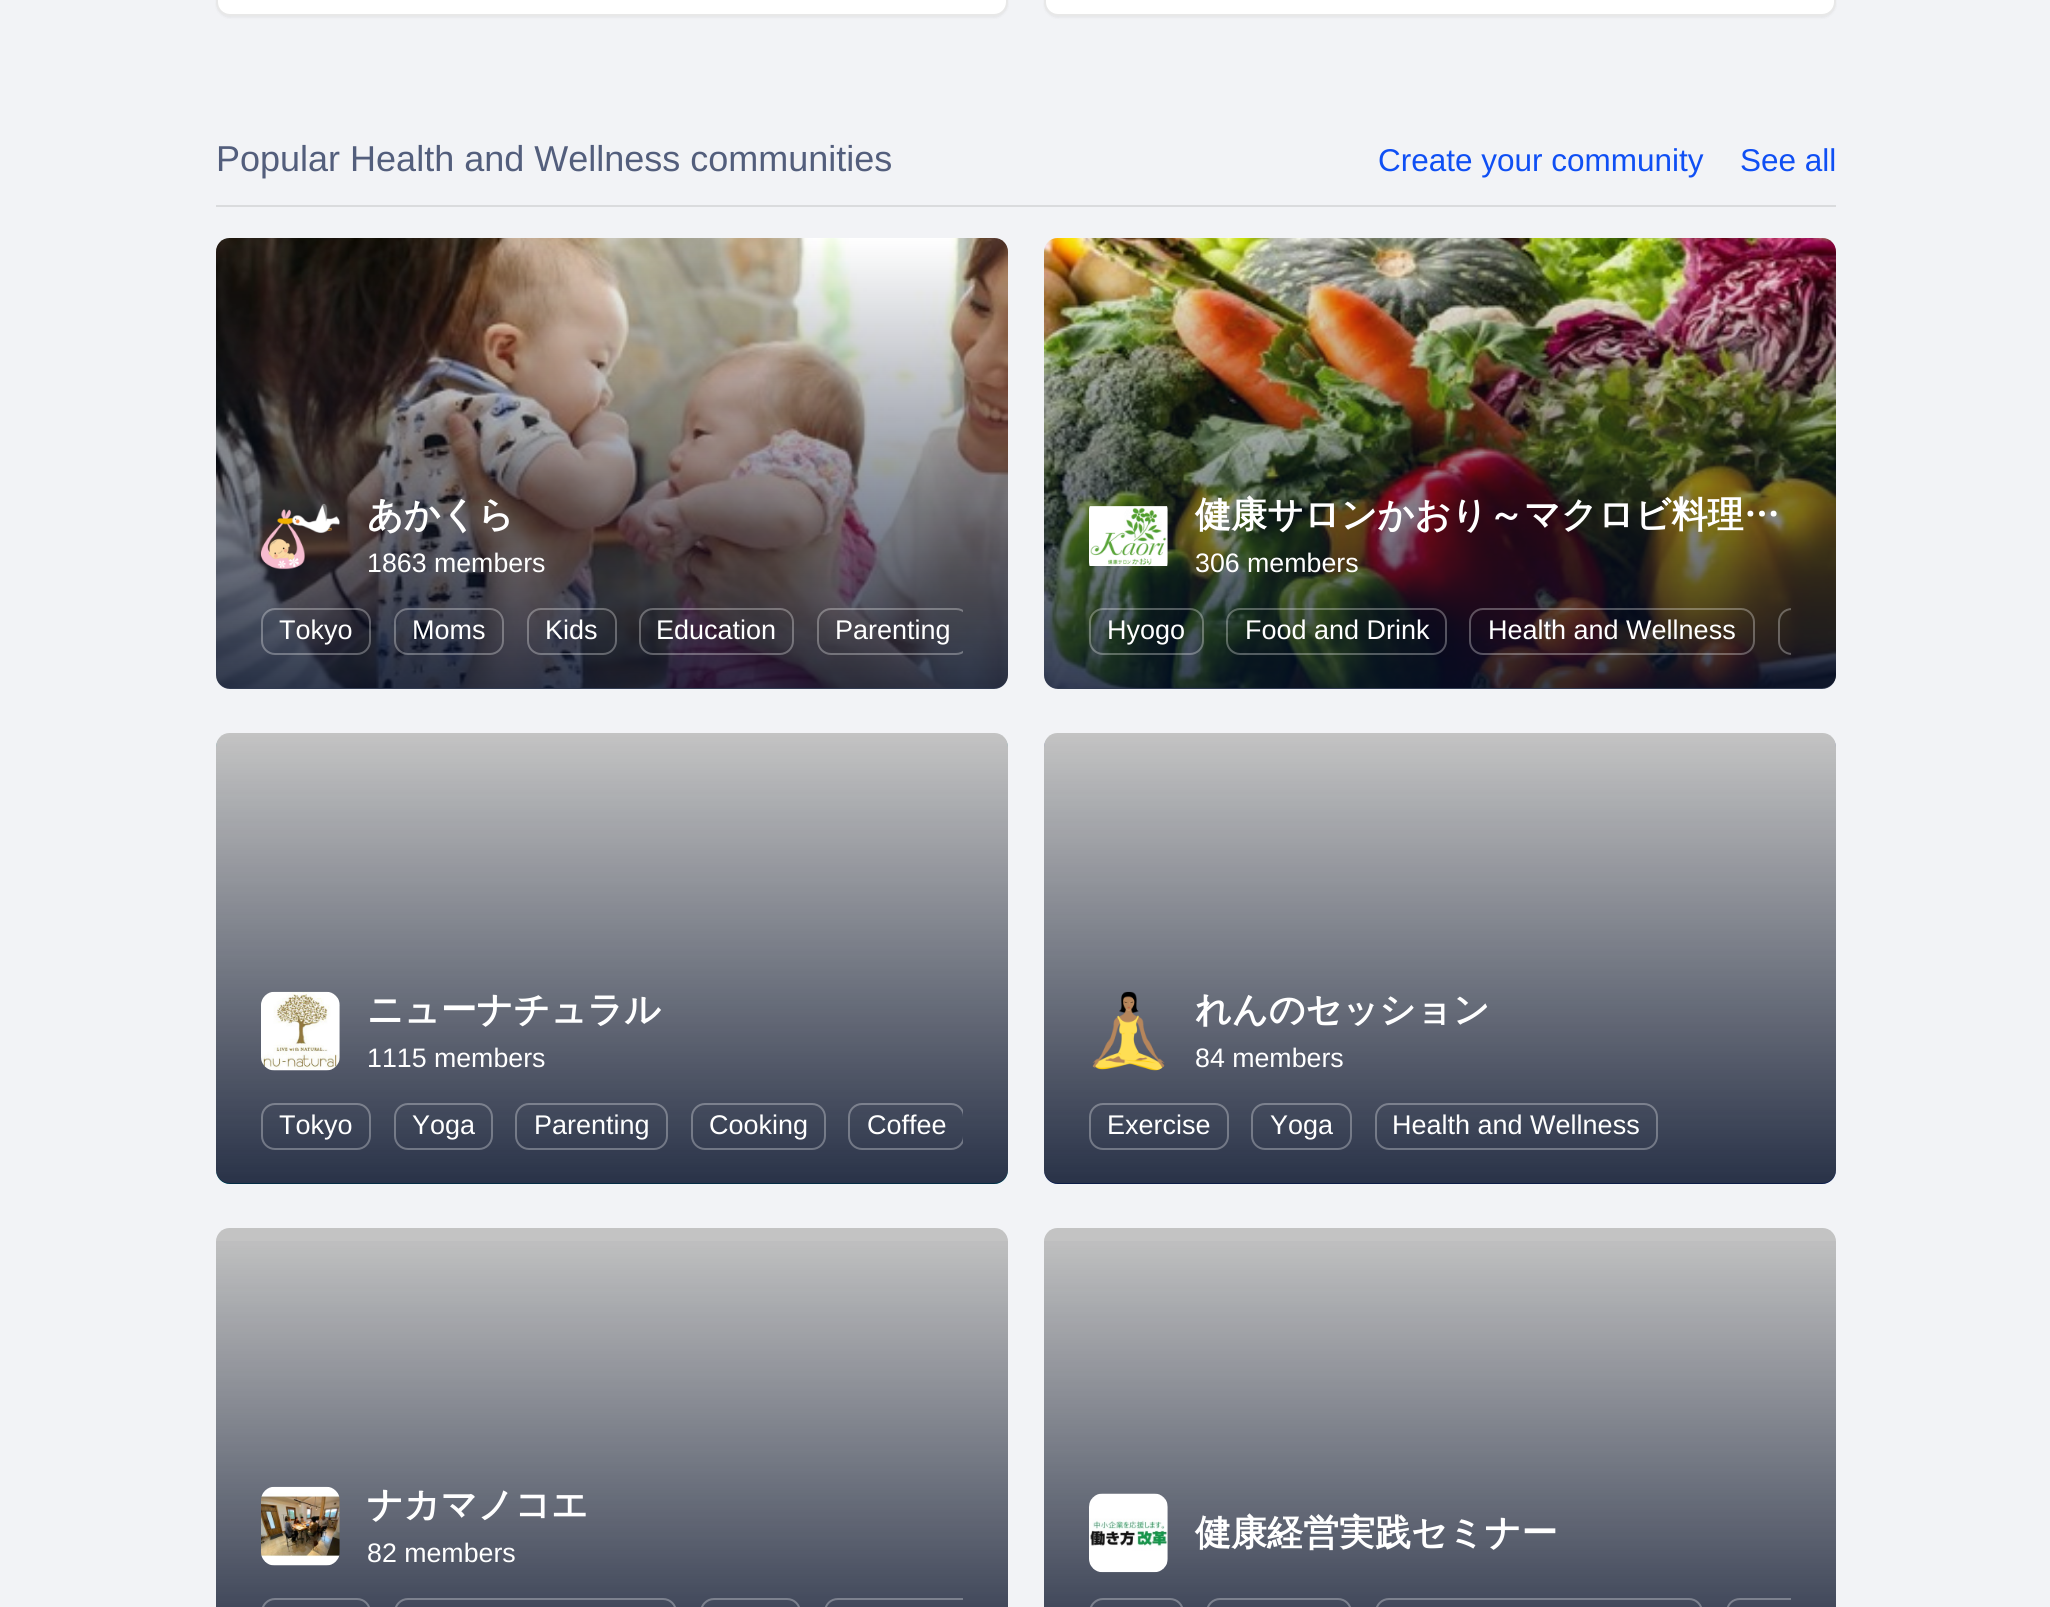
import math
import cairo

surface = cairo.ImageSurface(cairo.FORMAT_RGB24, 2050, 1607)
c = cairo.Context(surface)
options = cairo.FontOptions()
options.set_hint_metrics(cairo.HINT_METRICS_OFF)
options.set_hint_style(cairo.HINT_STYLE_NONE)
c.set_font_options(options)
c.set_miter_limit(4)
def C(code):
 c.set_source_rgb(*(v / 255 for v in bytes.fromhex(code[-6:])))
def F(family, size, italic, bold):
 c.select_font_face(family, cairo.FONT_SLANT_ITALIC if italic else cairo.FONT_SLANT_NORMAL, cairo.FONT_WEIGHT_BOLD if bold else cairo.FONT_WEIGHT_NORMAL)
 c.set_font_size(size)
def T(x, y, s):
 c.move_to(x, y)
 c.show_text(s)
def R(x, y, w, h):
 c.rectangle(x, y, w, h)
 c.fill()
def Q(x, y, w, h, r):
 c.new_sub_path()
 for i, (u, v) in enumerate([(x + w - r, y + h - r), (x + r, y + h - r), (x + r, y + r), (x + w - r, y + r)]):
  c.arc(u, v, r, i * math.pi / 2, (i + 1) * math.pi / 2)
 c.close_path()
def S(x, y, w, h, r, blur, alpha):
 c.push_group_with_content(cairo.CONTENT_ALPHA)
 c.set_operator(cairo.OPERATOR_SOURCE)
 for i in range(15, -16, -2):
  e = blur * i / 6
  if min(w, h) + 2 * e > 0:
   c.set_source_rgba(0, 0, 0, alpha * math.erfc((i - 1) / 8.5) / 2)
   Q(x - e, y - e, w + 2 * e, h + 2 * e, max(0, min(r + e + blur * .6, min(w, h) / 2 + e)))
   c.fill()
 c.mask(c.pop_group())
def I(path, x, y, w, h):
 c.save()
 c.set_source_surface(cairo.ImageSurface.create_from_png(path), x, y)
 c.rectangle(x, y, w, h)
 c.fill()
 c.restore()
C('f2f3f6')
c.paint()
C('000000')
S(216,-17,792,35,14,1,.05)
C('ffffff')
Q(216,-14,792,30,14)
c.fill()
Q(217,-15,790,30,13)
c.set_source_rgba(0,0,0,0.09)
c.stroke()
C('000000')
S(1044,-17,792,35,14,1,.05)
C('ffffff')
Q(1044,-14,792,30,14)
c.fill()
Q(1045,-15,790,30,13)
c.set_source_rgba(0,0,0,0.09)
c.stroke()
C('dadbdd')
R(216,205,1620,2)
F('Liberation Sans',36,0,0)
C('535e7c')
T(216,171,'Popular Health and Wellness communities')
F('Liberation Sans',31.5,0,0)
C('0f4ff4')
T(1378,171,'Create your community')
T(1740,171,'See all')
I('1.png',216,238,792,450)
gradient = cairo.LinearGradient(612,238,612,689)
gradient.add_color_stop_rgba(0,0.012,0.055,0.161,0)
gradient.add_color_stop_rgba(1,0.012,0.055,0.161,.8)
c.set_source(gradient)
Q(216,239,792,450,14)
c.fill()
I('2.png',261,503,79,67)
F('WenQuanYi Zen Hei',36,0,1)
C('ffffff')
T(367,527,'あかくら')
F('Liberation Sans',26.75,0,0)
T(367,572,'1863 members')
Q(262,609,108,45,13)
c.set_source_rgba(1,1,1,0.3)
c.stroke()
F('Liberation Sans',27,0,0)
C('ffffff')
T(279,639,'Tokyo')
Q(395,609,108,45,13)
c.set_source_rgba(1,1,1,0.3)
c.stroke()
C('ffffff')
T(412,639,'Moms')
Q(528,609,88,45,13)
c.set_source_rgba(1,1,1,0.3)
c.stroke()
C('ffffff')
T(545,639,'Kids')
Q(640,609,153,45,13)
c.set_source_rgba(1,1,1,0.3)
c.stroke()
C('ffffff')
T(656,639,'Education')
c.save()
c.rectangle(261,605,702,50)
c.clip()
Q(818,609,151,45,13)
c.set_source_rgba(1,1,1,0.3)
c.stroke()
c.restore()
T(835,639,'Parenting')
I('3.png',1044,238,792,450)
gradient = cairo.LinearGradient(1440,238,1440,689)
gradient.add_color_stop_rgba(0,0.012,0.055,0.161,0)
gradient.add_color_stop_rgba(1,0.012,0.055,0.161,.8)
c.set_source(gradient)
Q(1044,239,792,450,14)
c.fill()
I('4.png',1089,506,79,60)
F('WenQuanYi Zen Hei',36,0,1)
C('ffffff')
T(1195,527,'健康サロンかおり～マクロビ料理…')
F('Liberation Sans',26.75,0,0)
T(1195,572,'306 members')
Q(1090,609,113,45,13)
c.set_source_rgba(1,1,1,0.3)
c.stroke()
F('Liberation Sans',27,0,0)
C('ffffff')
T(1107,639,'Hyogo')
Q(1227,609,219,45,13)
c.set_source_rgba(1,1,1,0.3)
c.stroke()
C('ffffff')
T(1245,639,'Food and Drink')
Q(1470,609,284,45,13)
c.set_source_rgba(1,1,1,0.3)
c.stroke()
C('ffffff')
T(1488,639,'Health and Wellness')
c.save()
c.rectangle(1089,605,702,50)
c.clip()
c.set_source_rgba(1,1,1,0.3)
c.new_path()
c.move_to(1792,608)
c.curve_to(1784,608,1778,614,1778,622)
c.line_to(1778,641)
c.curve_to(1778,649,1784,655,1792,655)
c.line_to(1836,655)
c.line_to(1836,653)
c.line_to(1792,653)
c.curve_to(1785,653,1780,648,1780,641)
c.line_to(1780,622)
c.curve_to(1780,615,1785,610,1792,610)
c.line_to(1836,610)
c.line_to(1836,608)
c.close_path()
c.fill()
c.restore()
C('08a5af')
Q(216,734,792,450,14)
c.fill()
I('5.png',216,733,792,450)
gradient = cairo.LinearGradient(612,734,612,1184)
gradient.add_color_stop_rgba(0,0.012,0.055,0.161,0)
gradient.add_color_stop_rgba(1,0.012,0.055,0.161,.8)
c.set_source(gradient)
Q(216,734,792,450,14)
c.fill()
I('6.png',261,991,79,80)
F('WenQuanYi Zen Hei',36,0,1)
C('ffffff')
T(367,1022,'ニューナチュラル')
F('Liberation Sans',26.75,0,0)
T(367,1067,'1115 members')
Q(262,1104,108,45,13)
c.set_source_rgba(1,1,1,0.3)
c.stroke()
F('Liberation Sans',27,0,0)
C('ffffff')
T(279,1134,'Tokyo')
Q(395,1104,97,45,13)
c.set_source_rgba(1,1,1,0.3)
c.stroke()
C('ffffff')
T(412,1134,'Yoga')
Q(516,1104,151,45,13)
c.set_source_rgba(1,1,1,0.3)
c.stroke()
C('ffffff')
T(534,1134,'Parenting')
Q(692,1104,133,45,13)
c.set_source_rgba(1,1,1,0.3)
c.stroke()
C('ffffff')
T(709,1134,'Cooking')
c.save()
c.rectangle(261,1100,702,50)
c.clip()
Q(849,1104,115,45,13)
c.set_source_rgba(1,1,1,0.3)
c.stroke()
c.restore()
T(867,1134,'Coffee')
C('375bb9')
Q(1044,734,792,450,14)
c.fill()
I('7.png',1044,733,792,450)
gradient = cairo.LinearGradient(1440,734,1440,1184)
gradient.add_color_stop_rgba(0,0.012,0.055,0.161,0)
gradient.add_color_stop_rgba(1,0.012,0.055,0.161,.8)
c.set_source(gradient)
Q(1044,734,792,450,14)
c.fill()
I('8.png',1092,991,73,80)
F('WenQuanYi Zen Hei',36,0,1)
C('ffffff')
T(1195,1022,'れんのセッション')
F('Liberation Sans',26.75,0,0)
T(1195,1067,'84 members')
Q(1090,1104,138,45,13)
c.set_source_rgba(1,1,1,0.3)
c.stroke()
F('Liberation Sans',27,0,0)
C('ffffff')
T(1107,1134,'Exercise')
Q(1252,1104,99,45,13)
c.set_source_rgba(1,1,1,0.3)
c.stroke()
C('ffffff')
T(1270,1134,'Yoga')
Q(1376,1104,281,45,13)
c.set_source_rgba(1,1,1,0.3)
c.stroke()
C('ffffff')
T(1392,1134,'Health and Wellness')
I('9.png',216,1228,792,379)
gradient = cairo.LinearGradient(612,1229,612,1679)
gradient.add_color_stop_rgba(0,0.012,0.055,0.161,0)
gradient.add_color_stop_rgba(1,0.012,0.055,0.161,.8)
c.set_source(gradient)
R(216,1241,792,366)
I('10.png',261,1486,79,80)
F('WenQuanYi Zen Hei',36,0,1)
C('ffffff')
T(367,1517,'ナカマノコエ')
F('Liberation Sans',26.75,0,0)
T(367,1562,'82 members')
Q(262,1599,108,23,13)
C('7c818e')
c.stroke()
Q(395,1599,281,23,13)
c.stroke()
Q(701,1599,99,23,13)
c.stroke()
c.save()
c.rectangle(261,1595,702,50)
c.clip()
c.new_path()
c.move_to(838,1598)
c.curve_to(830,1598,824,1604,824,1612)
c.line_to(824,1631)
c.curve_to(824,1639,830,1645,838,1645)
c.line_to(1008,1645)
c.line_to(1008,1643)
c.line_to(838,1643)
c.curve_to(831,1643,826,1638,826,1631)
c.line_to(826,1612)
c.curve_to(826,1605,831,1600,838,1600)
c.line_to(1008,1600)
c.line_to(1008,1598)
c.close_path()
c.fill()
c.restore()
I('11.png',1044,1228,792,379)
gradient = cairo.LinearGradient(1440,1229,1440,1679)
gradient.add_color_stop_rgba(0,0.012,0.055,0.161,0)
gradient.add_color_stop_rgba(1,0.012,0.055,0.161,.8)
c.set_source(gradient)
R(1044,1241,792,366)
I('12.png',1089,1493,79,80)
F('WenQuanYi Zen Hei',36,0,1)
C('ffffff')
T(1195,1545,'健康経営実践セミナー')
Q(1090,1599,93,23,13)
C('7c818e')
c.stroke()
Q(1207,1599,144,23,13)
c.stroke()
Q(1376,1599,326,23,13)
c.stroke()
c.save()
c.rectangle(1089,1595,702,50)
c.clip()
c.new_path()
c.move_to(1740,1598)
c.curve_to(1732,1598,1726,1604,1726,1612)
c.line_to(1726,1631)
c.curve_to(1726,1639,1732,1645,1740,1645)
c.line_to(1836,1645)
c.line_to(1836,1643)
c.line_to(1740,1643)
c.curve_to(1733,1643,1728,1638,1728,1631)
c.line_to(1728,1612)
c.curve_to(1728,1605,1733,1600,1740,1600)
c.line_to(1836,1600)
c.line_to(1836,1598)
c.close_path()
c.fill()
c.restore()
surface.write_to_png('o.png')
